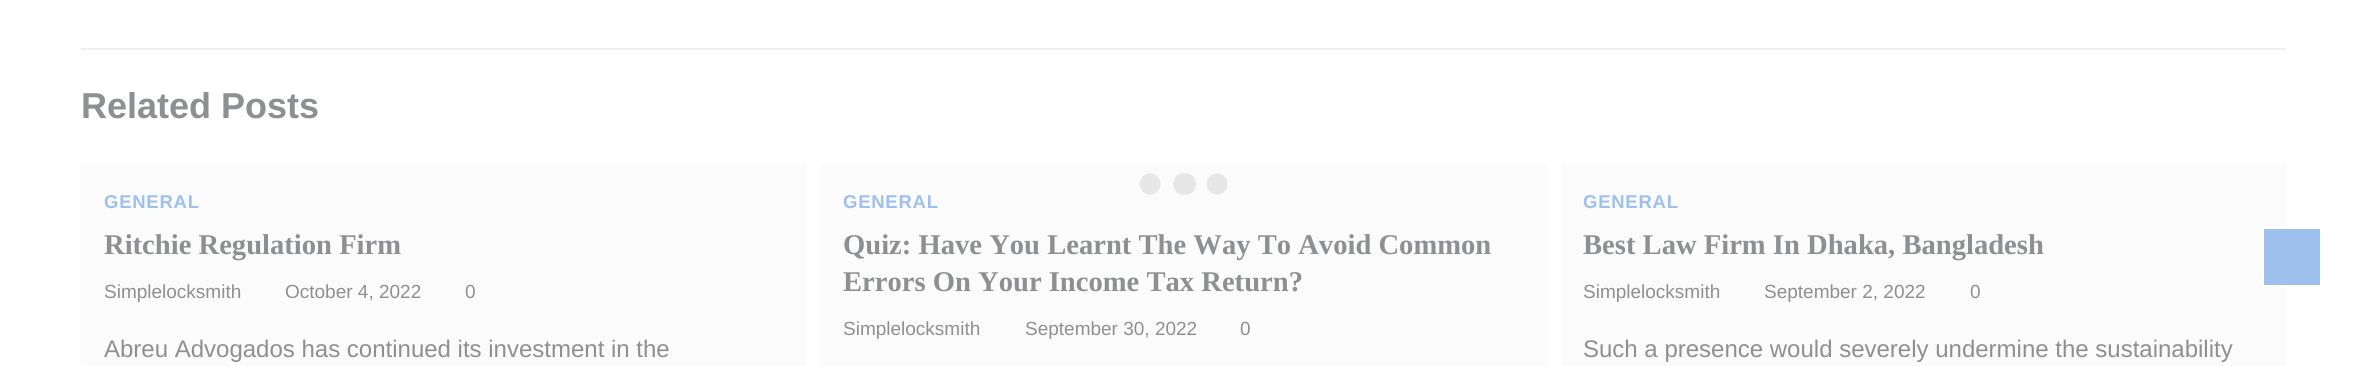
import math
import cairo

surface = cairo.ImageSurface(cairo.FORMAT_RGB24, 2366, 366)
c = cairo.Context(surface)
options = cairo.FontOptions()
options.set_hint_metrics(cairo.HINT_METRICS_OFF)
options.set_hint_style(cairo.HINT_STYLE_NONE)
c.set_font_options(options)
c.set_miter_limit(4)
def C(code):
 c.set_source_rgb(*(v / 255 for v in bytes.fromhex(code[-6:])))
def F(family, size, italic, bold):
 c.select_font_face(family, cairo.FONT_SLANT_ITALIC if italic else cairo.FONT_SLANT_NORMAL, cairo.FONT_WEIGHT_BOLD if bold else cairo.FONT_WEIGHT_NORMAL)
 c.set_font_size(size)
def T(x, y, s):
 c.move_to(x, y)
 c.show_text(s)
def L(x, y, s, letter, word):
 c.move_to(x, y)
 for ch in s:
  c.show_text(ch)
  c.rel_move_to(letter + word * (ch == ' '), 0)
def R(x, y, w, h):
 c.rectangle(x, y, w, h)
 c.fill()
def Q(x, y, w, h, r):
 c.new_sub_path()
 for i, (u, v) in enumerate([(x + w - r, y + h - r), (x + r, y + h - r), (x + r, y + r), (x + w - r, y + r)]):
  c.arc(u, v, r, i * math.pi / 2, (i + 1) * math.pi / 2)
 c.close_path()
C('ffffff')
c.paint()
C('efefef')
R(81,48,2205,2)
F('Liberation Sans',36,0,1)
C('8e8f90')
T(81,118,'Related Posts')
C('fbfbfb')
R(81,164,725,202)
F('Liberation Sans',18.5,0,1)
C('9ec0ec')
L(104,208,'GENERAL',.75,0)
F('Liberation Serif',28.6,0,1)
C('8e8f90')
T(104,254,'Ritchie Regulation Firm')
F('Liberation Sans',19,0,0)
T(104,298,'Simplelocksmith')
T(285,298,'October 4, 2022')
T(465,298,'0')
F('Liberation Sans',24,0,0)
T(104,357,'Abreu Advogados has continued its investment in the')
C('fbfbfb')
R(821,164,726,202)
F('Liberation Sans',18.5,0,1)
C('9ec0ec')
L(843,208,'GENERAL',.75,0)
F('Liberation Serif',28.6,0,1)
C('8e8f90')
T(843,254,'Quiz: Have You Learnt The Way To Avoid Common')
T(843,291,'Errors On Your Income Tax Return?')
F('Liberation Sans',19,0,0)
T(843,335,'Simplelocksmith')
T(1025,335,'September 30, 2022')
T(1240,335,'0')
C('fbfbfb')
R(1562,164,724,202)
F('Liberation Sans',18.5,0,1)
C('9ec0ec')
L(1583,208,'GENERAL',.75,0)
F('Liberation Serif',28.6,0,1)
C('8e8f90')
T(1583,254,'Best Law Firm In Dhaka, Bangladesh')
F('Liberation Sans',19,0,0)
T(1583,298,'Simplelocksmith')
T(1764,298,'September 2, 2022')
T(1970,298,'0')
F('Liberation Sans',24,0,0)
T(1583,357,'Such a presence would severely undermine the sustainability')
gradient = cairo.RadialGradient(1217,184,0,1217,184,11)
gradient.add_color_stop_rgba(.9,0.906,0.906,0.906,1)
gradient.add_color_stop_rgba(1,0.984,0.984,0.984,1)
c.set_source(gradient)
R(1206,173,22,22)
gradient = cairo.RadialGradient(1150,184,0,1150,184,11)
gradient.add_color_stop_rgba(.9,0.906,0.906,0.906,1)
gradient.add_color_stop_rgba(1,0.984,0.984,0.984,1)
c.set_source(gradient)
R(1139,173,22,22)
C('e7e7e7')
Q(1173,173,23,22,11)
c.fill()
C('9ec0ec')
c.rectangle(2263,228,58,58)
c.fill_preserve()
C('ffffff')
c.stroke()
surface.write_to_png('o.png')
